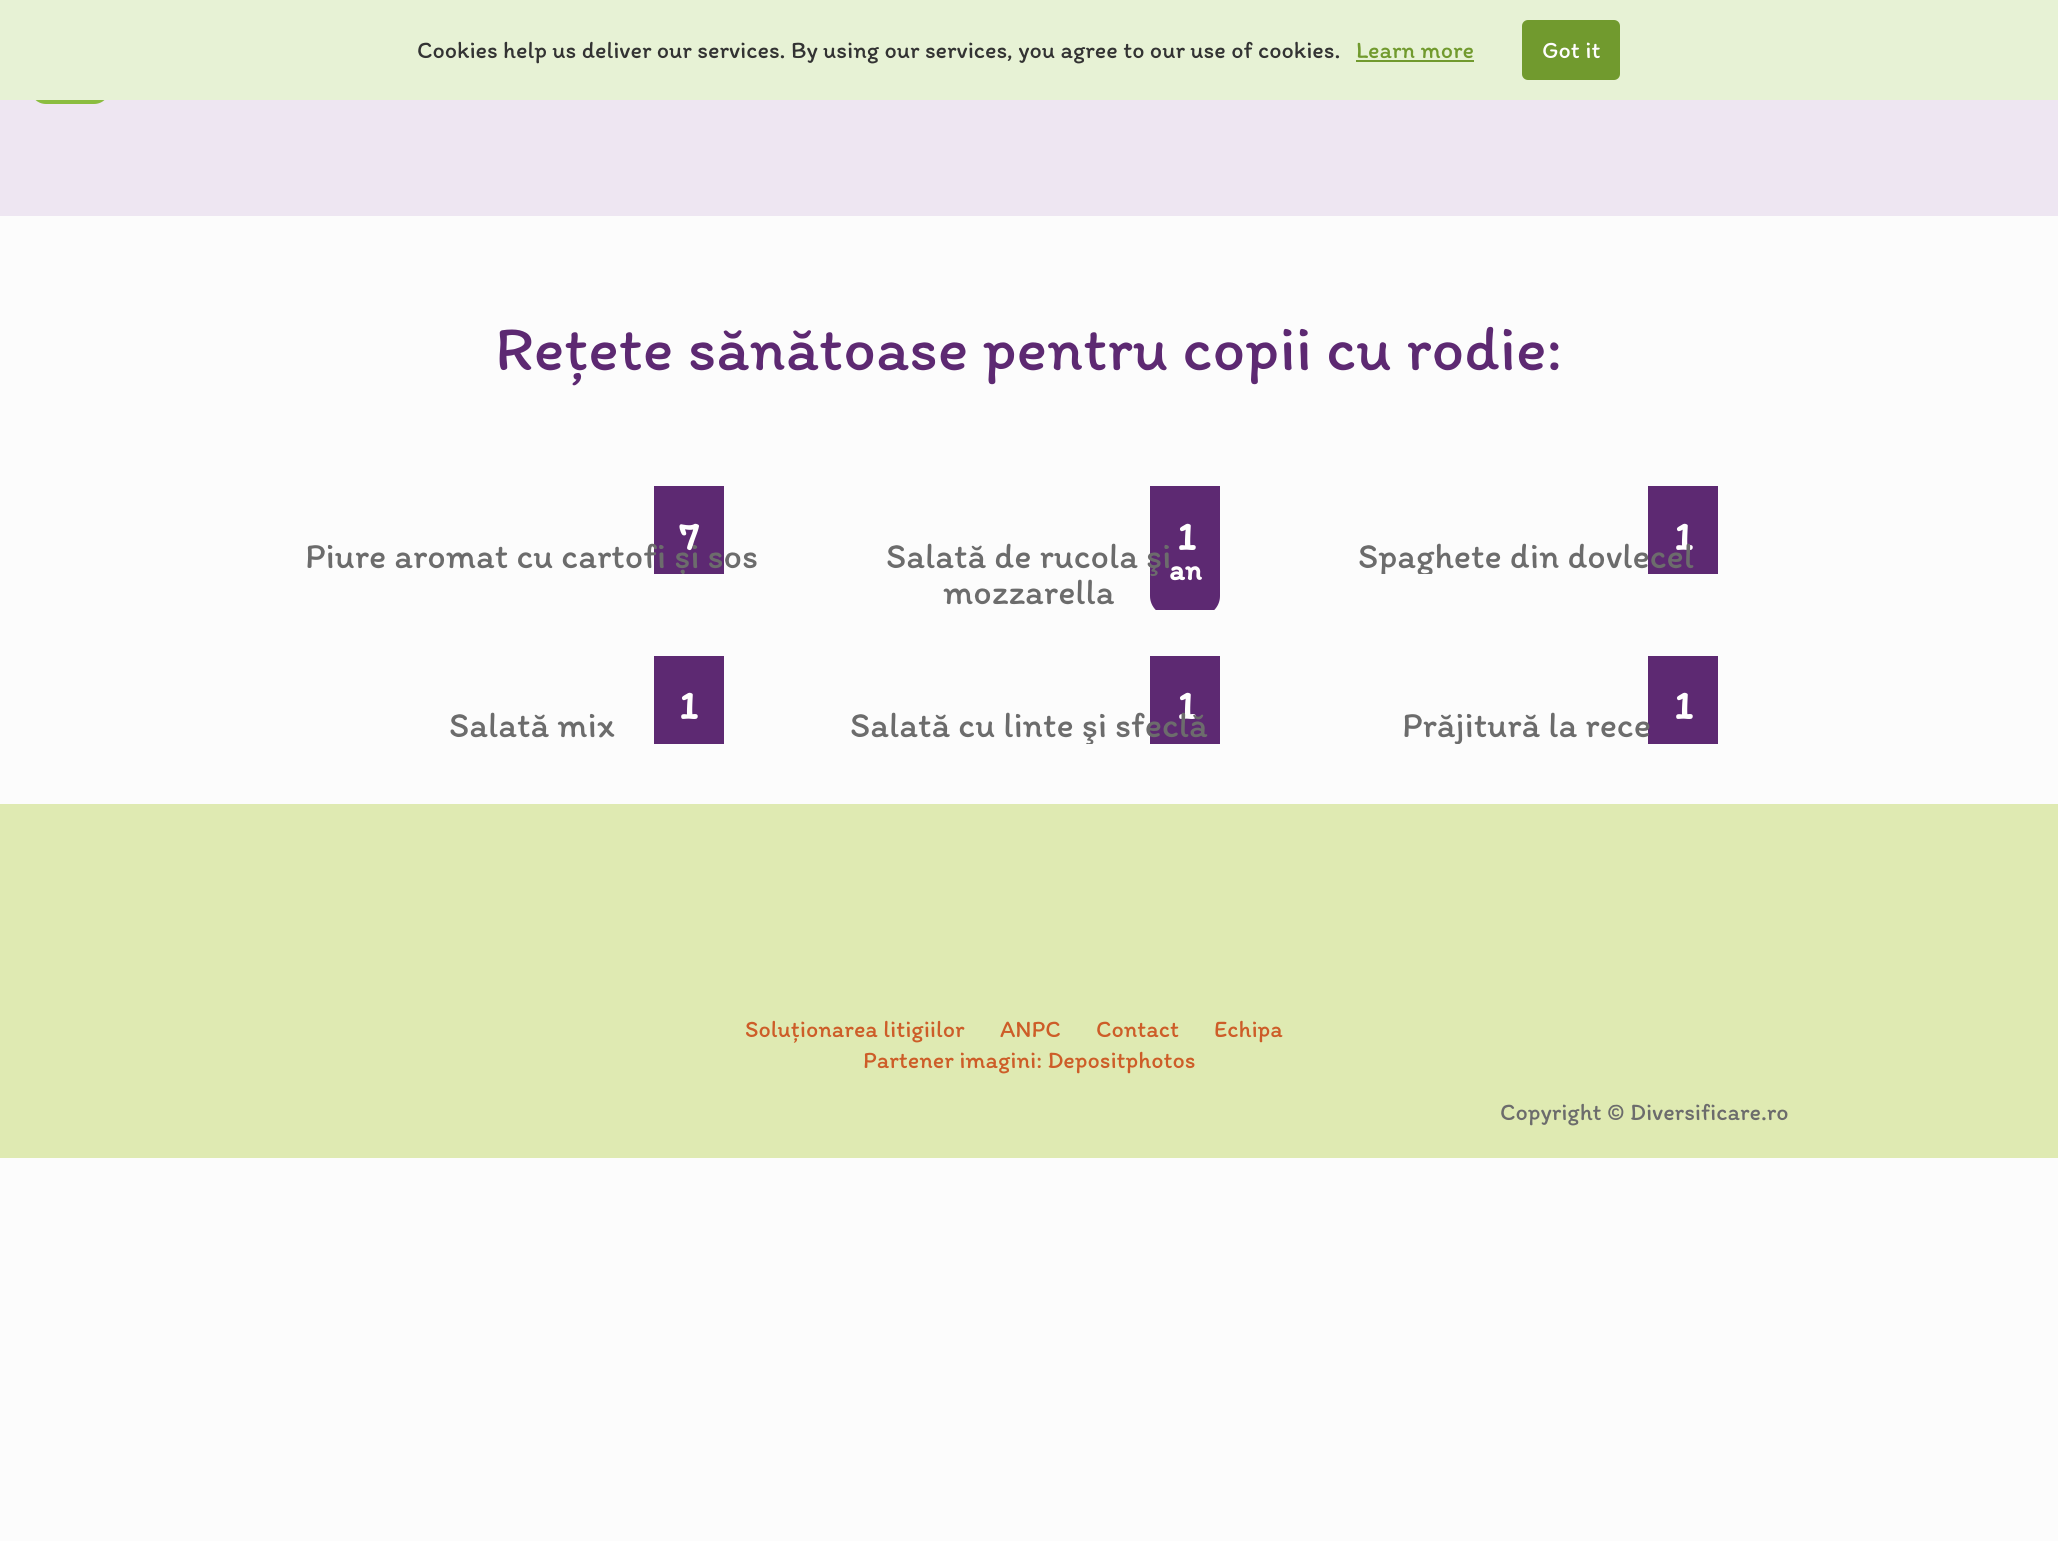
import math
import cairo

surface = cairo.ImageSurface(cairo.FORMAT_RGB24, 2058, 1541)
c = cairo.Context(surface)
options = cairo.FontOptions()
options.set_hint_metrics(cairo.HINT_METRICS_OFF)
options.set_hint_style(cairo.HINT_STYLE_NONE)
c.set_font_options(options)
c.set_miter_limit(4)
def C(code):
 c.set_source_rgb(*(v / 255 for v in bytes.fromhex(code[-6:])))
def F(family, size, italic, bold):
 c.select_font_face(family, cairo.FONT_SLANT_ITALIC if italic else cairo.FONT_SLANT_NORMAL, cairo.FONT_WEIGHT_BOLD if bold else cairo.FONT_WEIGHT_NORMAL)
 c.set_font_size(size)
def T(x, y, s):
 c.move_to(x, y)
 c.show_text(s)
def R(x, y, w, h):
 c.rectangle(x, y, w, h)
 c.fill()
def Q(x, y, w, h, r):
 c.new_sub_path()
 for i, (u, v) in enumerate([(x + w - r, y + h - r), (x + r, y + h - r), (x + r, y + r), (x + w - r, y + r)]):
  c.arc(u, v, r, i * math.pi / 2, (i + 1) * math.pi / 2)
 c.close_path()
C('fcfcfc')
c.paint()
C('eee6f2')
R(0,100,2058,116)
C('8bbd40')
Q(30,24,80,80,16)
c.fill()
C('e7f2d5')
R(0,0,2058,100)
F('Itim',24,0,0)
C('333333')
T(417,58,'Cookies help us deliver our services. By using our services, you agree to our use of cookies.')
C('719a2e')
T(1356,58,'Learn more')
R(1356,60,118,2)
Q(1522,20,98,60,6)
c.fill()
C('fffefe')
T(1542,58,'Got it')
F('Itim',64,0,0)
C('5d2972')
T(495,370,'Rețete sănătoase pentru copii cu rodie:')
R(654,486,70,88)
F('Itim',40,0,1)
C('fffefe')
T(679,550,'7')
c.save()
c.rectangle(300,486,464,88)
c.clip()
F('Itim',36,0,0)
C('6c6c6c')
T(305,568,'Piure aromat cu cartofi și sos')
c.restore()
c.save()
c.rectangle(798,486,462,124)
c.clip()
C('5d2972')
c.new_path()
c.move_to(1150,486)
c.line_to(1220,486)
c.line_to(1220,596)
c.curve_to(1220,607,1211,616,1200,616)
c.line_to(1170,616)
c.curve_to(1159,616,1150,607,1150,596)
c.close_path()
c.fill()
c.restore()
F('Itim',36,0,0)
C('6c6c6c')
T(886,568,'Salată de rucola şi')
T(943,604,'mozzarella')
F('Itim',40,0,1)
C('fffefe')
T(1177,550,'1')
F('Itim',30,0,1)
T(1169,580,'an')
C('5d2972')
R(1648,486,70,88)
F('Itim',40,0,1)
C('fffefe')
T(1674,550,'1')
c.save()
c.rectangle(1294,486,464,88)
c.clip()
F('Itim',36,0,0)
C('6c6c6c')
T(1358,568,'Spaghete din dovlecel')
c.restore()
C('5d2972')
R(654,656,70,88)
C('fffefe')
T(679,719,'1')
F('Itim',36,0,0)
C('6c6c6c')
T(449,737,'Salată mix')
C('5d2972')
R(1150,656,70,88)
F('Itim',40,0,1)
C('fffefe')
T(1177,719,'1')
c.save()
c.rectangle(798,656,462,88)
c.clip()
F('Itim',36,0,0)
C('6c6c6c')
T(850,737,'Salată cu linte şi sfeclă')
c.restore()
C('5d2972')
R(1648,656,70,88)
C('fffefe')
T(1674,719,'1')
c.save()
c.rectangle(1294,656,464,88)
c.clip()
F('Itim',36,0,0)
C('6c6c6c')
T(1402,737,'Prăjitură la rece')
c.restore()
C('dfeab2')
R(0,804,2058,354)
F('Itim',24,0,0)
C('cd5d28')
T(745,1037,'Soluționarea litigiilor')
T(1000,1037,'ANPC')
T(1096,1037,'Contact')
T(1214,1037,'Echipa')
T(863,1068,'Partener imagini: Depositphotos')
C('6c6c6c')
T(1500,1120,'Copyright © Diversificare.ro')
surface.write_to_png('o.png')
